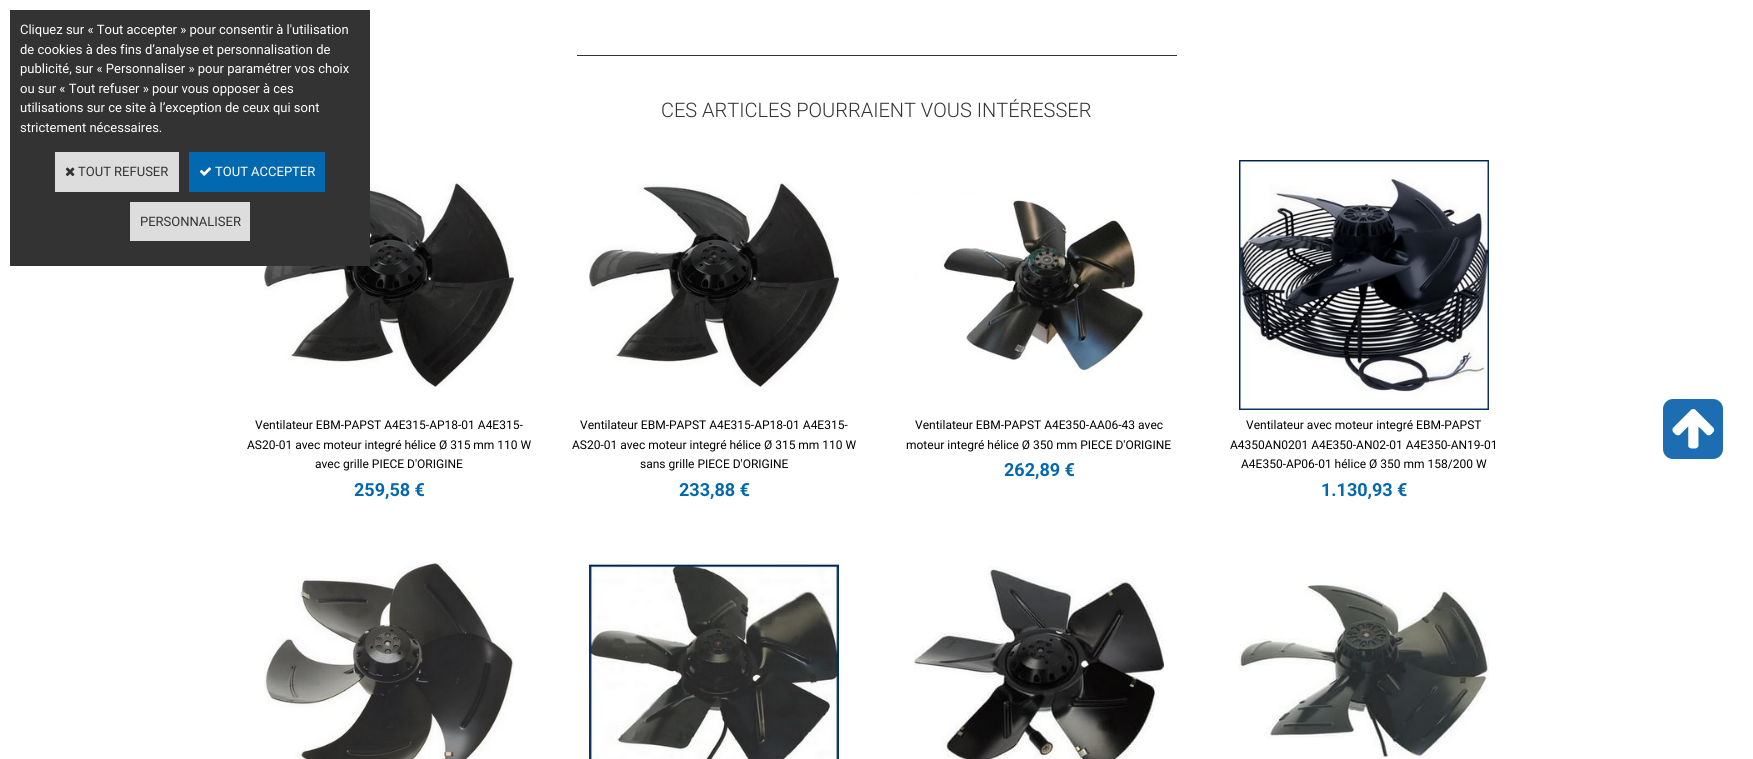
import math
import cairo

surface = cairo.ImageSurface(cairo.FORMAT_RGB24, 1753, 759)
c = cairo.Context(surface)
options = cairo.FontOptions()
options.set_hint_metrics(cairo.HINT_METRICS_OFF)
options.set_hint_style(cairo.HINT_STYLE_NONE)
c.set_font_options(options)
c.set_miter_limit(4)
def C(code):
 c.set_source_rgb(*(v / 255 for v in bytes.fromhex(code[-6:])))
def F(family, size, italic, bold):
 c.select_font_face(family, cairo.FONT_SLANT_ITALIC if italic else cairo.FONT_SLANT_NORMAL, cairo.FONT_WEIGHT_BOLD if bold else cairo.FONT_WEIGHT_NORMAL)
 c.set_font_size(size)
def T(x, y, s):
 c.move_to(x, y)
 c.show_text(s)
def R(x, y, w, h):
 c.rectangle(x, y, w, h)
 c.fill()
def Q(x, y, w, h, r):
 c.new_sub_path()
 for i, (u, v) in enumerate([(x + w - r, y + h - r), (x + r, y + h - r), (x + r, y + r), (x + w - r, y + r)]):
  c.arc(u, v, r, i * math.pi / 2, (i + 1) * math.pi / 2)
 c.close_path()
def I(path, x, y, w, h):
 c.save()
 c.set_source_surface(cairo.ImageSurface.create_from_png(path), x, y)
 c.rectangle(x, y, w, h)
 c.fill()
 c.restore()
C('ffffff')
c.paint()
I('3.png',264,181,250,206)
C('333333')
R(10,10,360,256)
F('Roboto',13,0,0)
C('ffffff')
T(20,34,'Cliquez sur « Tout accepter » pour consentir à l\'utilisation')
T(20,54,'de cookies à des fins d’analyse et personnalisation de')
T(20,73,'publicité, sur « Personnaliser » pour paramétrer vos choix')
T(20,93,'ou sur « Tout refuser » pour vous opposer à ces')
T(20,112,'utilisations sur ce site à l’exception de ceux qui sont')
T(20,132,'strictement nécessaires.')
C('dddddd')
R(55,152,124,40)
I('1.png',65,167,10,10)
C('333333')
T(78,176,'TOUT REFUSER')
C('0268b0')
R(189,152,136,40)
I('2.png',199,167,13,9)
C('ffffff')
T(215,176,'TOUT ACCEPTER')
C('dddddd')
R(130,202,120,39)
C('333333')
T(140,226,'PERSONNALISER')
R(577,55,600,1)
F('Roboto Light',20,0,0)
T(661,117,'CES ARTICLES POURRAIENT VOUS INTÉRESSER')
F('Roboto',12,0,0)
C('000000')
T(255,429,'Ventilateur EBM-PAPST A4E315-AP18-01 A4E315-')
T(247,449,'AS20-01 avec moteur integré hélice Ø 315 mm 110 W')
T(315,468,'avec grille PIECE D\'ORIGINE')
F('Roboto',18,0,1)
C('0268b0')
T(354,496,'259,58 €')
I('4.png',589,181,250,206)
F('Roboto',12,0,0)
C('000000')
T(580,429,'Ventilateur EBM-PAPST A4E315-AP18-01 A4E315-')
T(572,449,'AS20-01 avec moteur integré hélice Ø 315 mm 110 W')
T(640,468,'sans grille PIECE D\'ORIGINE')
F('Roboto',18,0,1)
C('0268b0')
T(679,496,'233,88 €')
I('5.png',914,191,232,182)
F('Roboto',12,0,0)
C('000000')
T(915,429,'Ventilateur EBM-PAPST A4E350-AA06-43 avec')
T(906,449,'moteur integré hélice Ø 350 mm PIECE D\'ORIGINE')
F('Roboto',18,0,1)
C('0268b0')
T(1004,476,'262,89 €')
I('6.png',1239,160,250,250)
F('Roboto',12,0,0)
C('000000')
T(1246,429,'Ventilateur avec moteur integré EBM-PAPST')
T(1230,449,'A4350AN0201 A4E350-AN02-01 A4E350-AN19-01')
T(1241,468,'A4E350-AP06-01 hélice Ø 350 mm 158/200 W')
F('Roboto',18,0,1)
C('0268b0')
T(1321,496,'1.130,93 €')
I('7.png',264,559,250,200)
I('8.png',589,559,250,200)
I('9.png',914,566,250,193)
I('10.png',1239,584,250,174)
C('1d6db2')
Q(1663,399,60,60,10)
c.fill()
I('11.png',1672,409,43,40)
surface.write_to_png('o.png')
